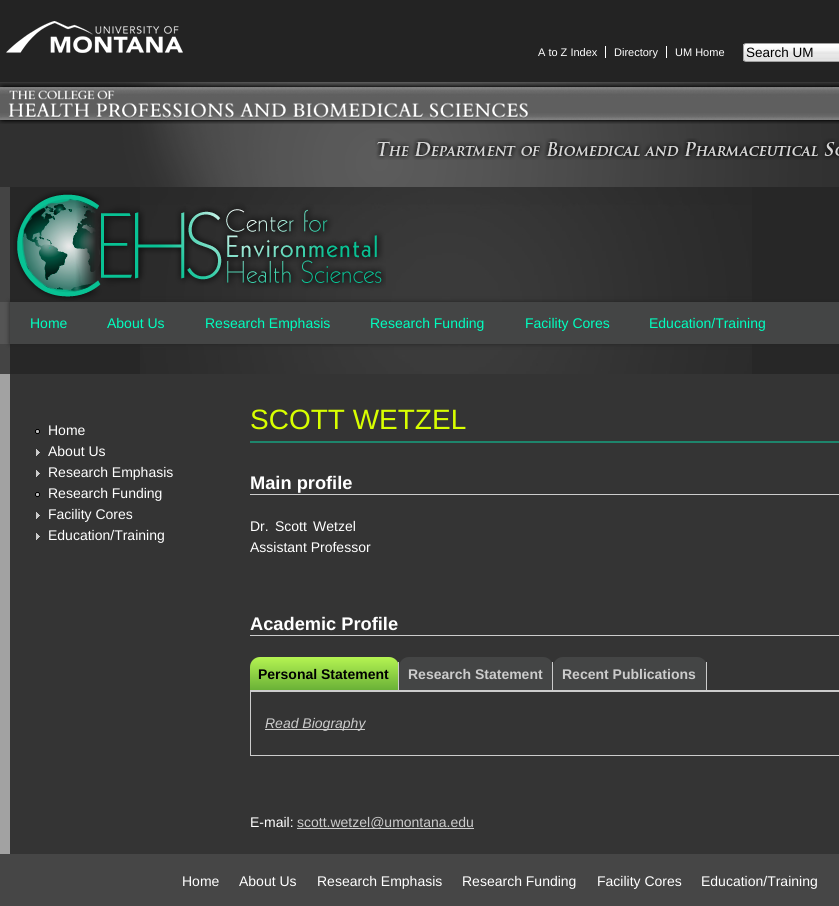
import math
import cairo

surface = cairo.ImageSurface(cairo.FORMAT_RGB24, 839, 906)
c = cairo.Context(surface)
options = cairo.FontOptions()
options.set_hint_metrics(cairo.HINT_METRICS_OFF)
options.set_hint_style(cairo.HINT_STYLE_NONE)
c.set_font_options(options)
c.set_miter_limit(4)
def C(code):
 c.set_source_rgb(*(v / 255 for v in bytes.fromhex(code[-6:])))
def F(family, size, italic, bold):
 c.select_font_face(family, cairo.FONT_SLANT_ITALIC if italic else cairo.FONT_SLANT_NORMAL, cairo.FONT_WEIGHT_BOLD if bold else cairo.FONT_WEIGHT_NORMAL)
 c.set_font_size(size)
def T(x, y, s):
 c.move_to(x, y)
 c.show_text(s)
def R(x, y, w, h):
 c.rectangle(x, y, w, h)
 c.fill()
def Q(x, y, w, h, r):
 c.new_sub_path()
 for i, (u, v) in enumerate([(x + w - r, y + h - r), (x + r, y + h - r), (x + r, y + r), (x + w - r, y + r)]):
  c.arc(u, v, r, i * math.pi / 2, (i + 1) * math.pi / 2)
 c.close_path()
def S(x, y, w, h, r, blur, alpha):
 c.push_group_with_content(cairo.CONTENT_ALPHA)
 c.set_operator(cairo.OPERATOR_SOURCE)
 for i in range(15, -16, -2):
  e = blur * i / 6
  if min(w, h) + 2 * e > 0:
   c.set_source_rgba(0, 0, 0, alpha * math.erfc((i - 1) / 8.5) / 2)
   Q(x - e, y - e, w + 2 * e, h + 2 * e, max(0, min(r + e + blur * .6, min(w, h) / 2 + e)))
   c.fill()
 c.mask(c.pop_group())
def I(path, x, y, w, h):
 c.save()
 c.set_source_surface(cairo.ImageSurface.create_from_png(path), x, y)
 c.rectangle(x, y, w, h)
 c.fill()
 c.restore()
C('ffffff')
c.paint()
C('232323')
R(0,0,839,82)
I('1.png',6,21,177,32)
F('Liberation Sans',11,0,0)
C('ffffff')
T(538,56,'A to Z Index')
R(605,46,1,12)
T(614,56,'Directory')
R(666,46,1,12)
T(675,56,'UM Home')
I('2.png',743,44,96,17)
Q(743.5,43.5,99,18,2.5)
C('a0a0a0')
c.set_line_width(1)
c.stroke()
F('Liberation Sans',13.5,0,0)
C('000000')
T(746,57,'Search UM')
I('3.png',0,82,839,105)
I('4.png',0,83,839,41)
I('5.png',375,138,464,22)
C('444444')
R(0,187,10,187)
C('272727')
R(10,187,829,187)
I('6.png',140,187,612,187)
I('7.png',13,190,373,111)
C('a2a2a2')
R(0,374,10,480)
C('343434')
R(10,374,829,480)
C('555555')
R(0,302,10,42)
C('222222')
S(10,302,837,42,0,2.5,1)
C('444545')
R(10,302,829,42)
F('Liberation Sans',14,0,0)
C('00ffc0')
T(30,328,'Home')
T(107,328,'About Us')
T(205,328,'Research Emphasis')
T(370,328,'Research Funding')
T(525,328,'Facility Cores')
T(649,328,'Education/Training')
I('8.png',35,429,5,5)
C('ffffff')
T(48,435,'Home')
I('9.png',36,449,4,7)
T(48,456,'About Us')
I('9.png',36,470,4,7)
T(48,477,'Research Emphasis')
I('8.png',35,492,5,5)
T(48,498,'Research Funding')
I('9.png',36,512,4,7)
T(48,519,'Facility Cores')
I('9.png',36,533,4,7)
T(48,540,'Education/Training')
C('1e856c')
R(250,441,589,2)
F('Liberation Sans',28,0,0)
C('d8ff00')
T(250,429,'SCOTT WETZEL')
C('cccccc')
R(250,494,589,1)
F('Liberation Sans',18.25,0,1)
C('ffffff')
T(250,489,'Main profile')
F('Liberation Sans',14,0,0)
T(250,531,'Dr.')
T(275,531,'Scott')
T(313,531,'Wetzel')
T(250,552,'Assistant Professor')
C('cccccc')
R(250,635,589,1)
F('Liberation Sans',18.25,0,1)
C('ffffff')
T(250,630,'Academic Profile')
C('cccccc')
R(250,690,589,1)
gradient = cairo.LinearGradient(250,657,250,690)
gradient.add_color_stop_rgba(0,0.71,0.957,0.322,1)
gradient.add_color_stop_rgba(1,0.416,0.694,0.216,1)
c.set_source(gradient)
c.new_path()
c.move_to(260,657)
c.line_to(389,657)
c.curve_to(394.5,657,399,661.5,399,667)
c.line_to(399,690)
c.line_to(250,690)
c.line_to(250,667)
c.curve_to(250,661.5,254.5,657,260,657)
c.close_path()
c.fill()
C('cccccc')
R(398,662,1,28)
F('Liberation Sans',14,0,1)
C('000000')
T(258,679,'Personal Statement')
C('444545')
c.new_path()
c.move_to(409,657)
c.line_to(543,657)
c.curve_to(548.5,657,553,661.5,553,667)
c.line_to(553,690)
c.line_to(399,690)
c.line_to(399,667)
c.curve_to(399,661.5,403.5,657,409,657)
c.close_path()
c.fill()
C('cccccc')
R(552,662,1,28)
T(408,679,'Research Statement')
C('444545')
c.new_path()
c.move_to(563,657)
c.line_to(697,657)
c.curve_to(702.5,657,707,661.5,707,667)
c.line_to(707,690)
c.line_to(553,690)
c.line_to(553,667)
c.curve_to(553,661.5,557.5,657,563,657)
c.close_path()
c.fill()
C('cccccc')
R(706,662,1,28)
T(562,679,'Recent Publications')
c.rectangle(250.5,691.5,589,64)
c.stroke()
R(265,729,100,1)
F('Liberation Sans',14,1,0)
T(265,728,'Read Biography')
F('Liberation Sans',14,0,0)
C('ffffff')
T(250,827,'E-mail:')
C('cccccc')
R(297,828,177,1)
T(297,827,'scott.wetzel@umontana.edu')
C('464646')
R(0,854,839,52)
C('ffffff')
T(182,886,'Home')
T(239,886,'About Us')
T(317,886,'Research Emphasis')
T(462,886,'Research Funding')
T(597,886,'Facility Cores')
T(701,886,'Education/Training')
surface.write_to_png('o.png')
